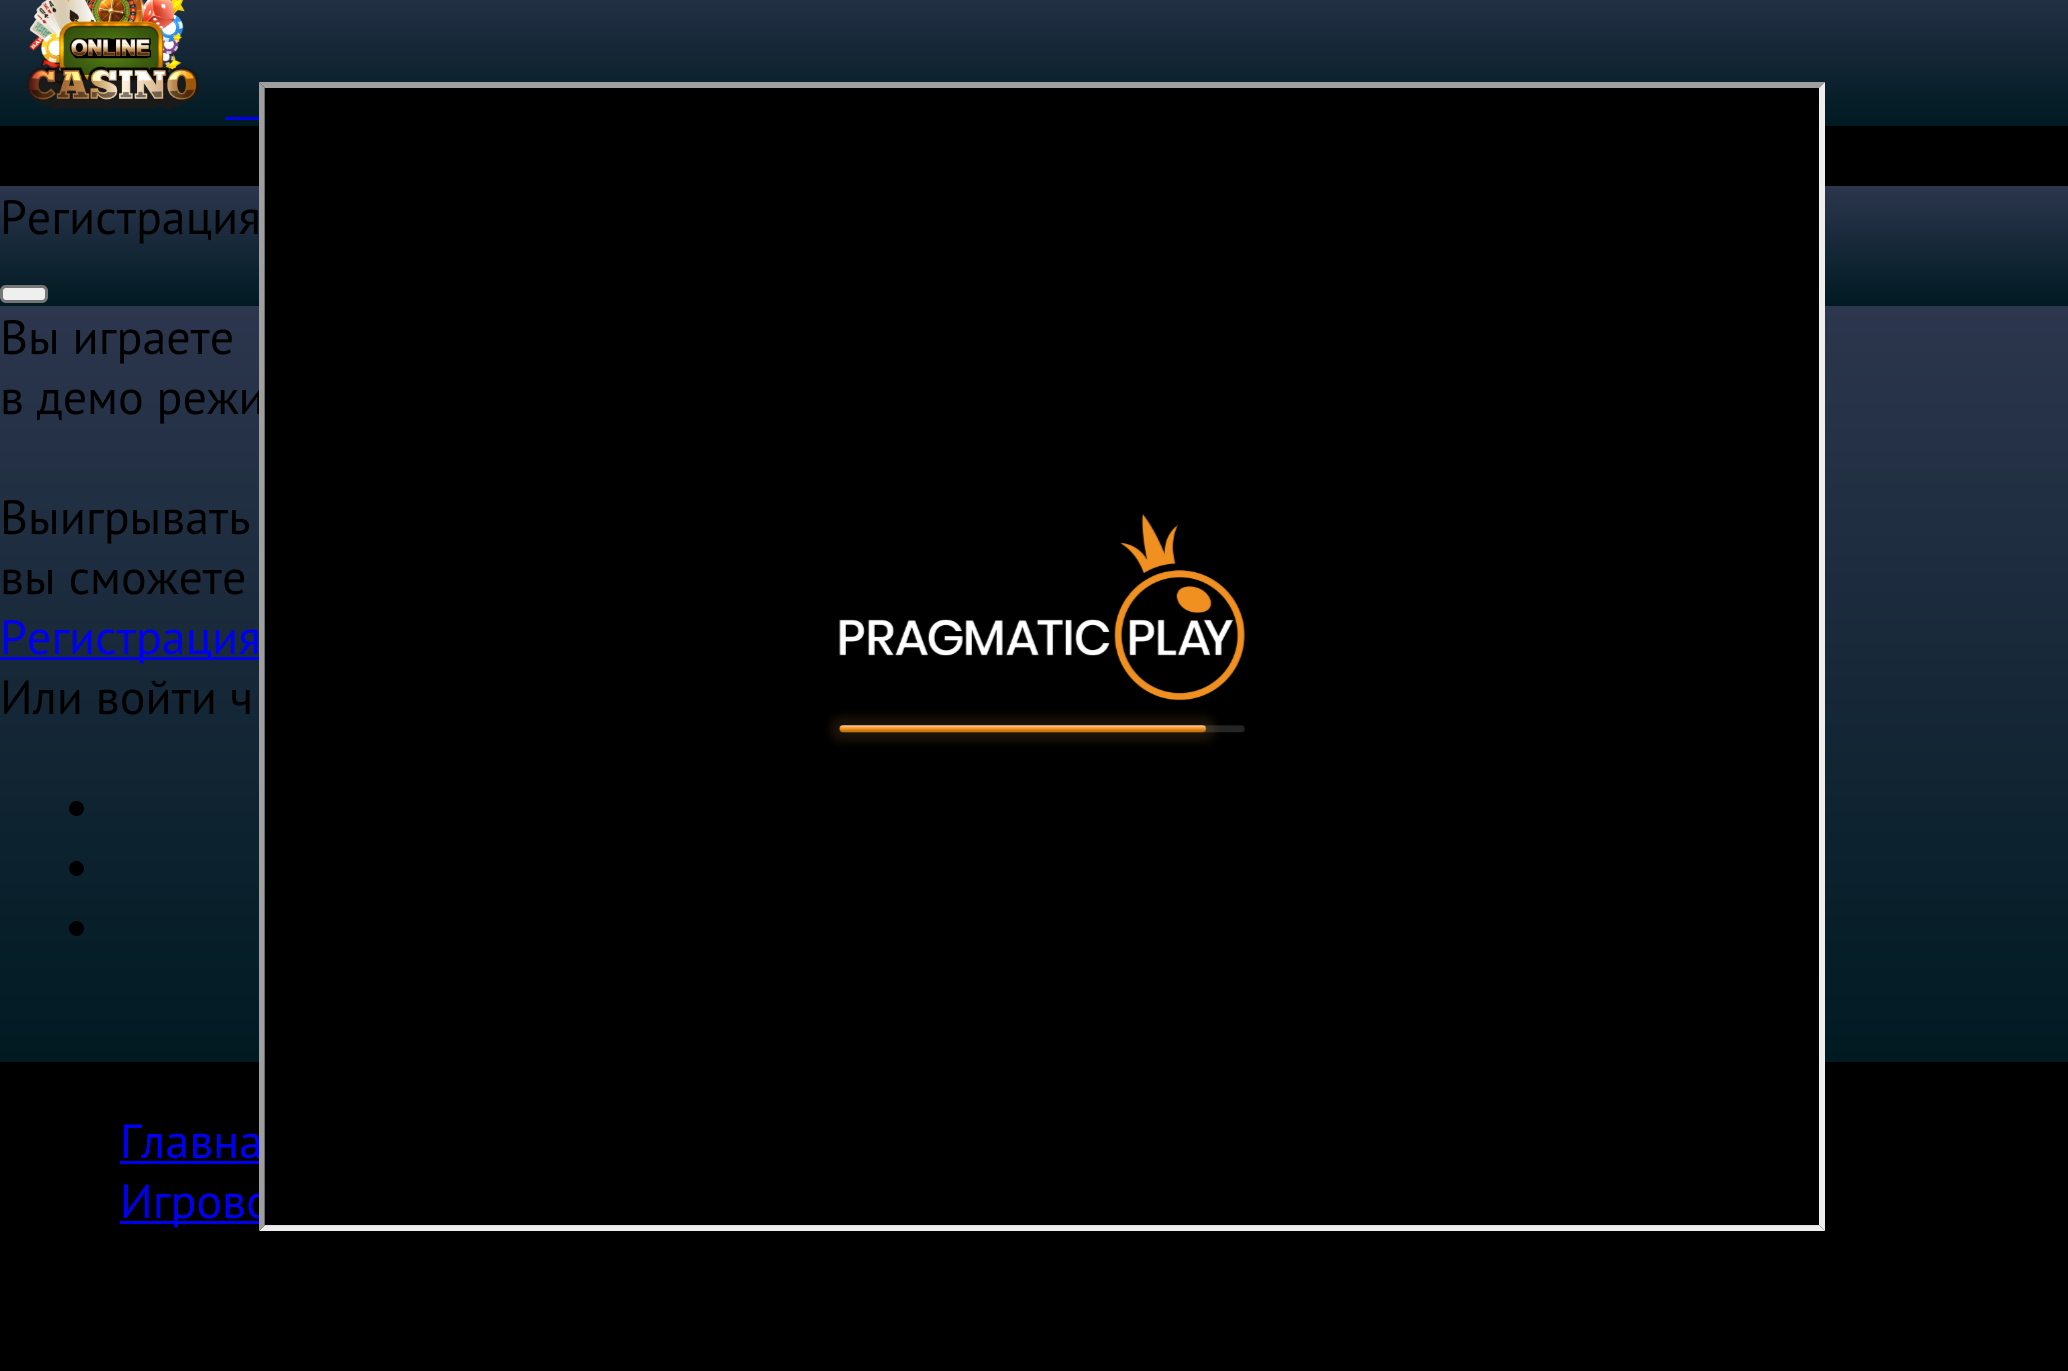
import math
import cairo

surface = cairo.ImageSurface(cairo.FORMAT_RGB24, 2068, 1371)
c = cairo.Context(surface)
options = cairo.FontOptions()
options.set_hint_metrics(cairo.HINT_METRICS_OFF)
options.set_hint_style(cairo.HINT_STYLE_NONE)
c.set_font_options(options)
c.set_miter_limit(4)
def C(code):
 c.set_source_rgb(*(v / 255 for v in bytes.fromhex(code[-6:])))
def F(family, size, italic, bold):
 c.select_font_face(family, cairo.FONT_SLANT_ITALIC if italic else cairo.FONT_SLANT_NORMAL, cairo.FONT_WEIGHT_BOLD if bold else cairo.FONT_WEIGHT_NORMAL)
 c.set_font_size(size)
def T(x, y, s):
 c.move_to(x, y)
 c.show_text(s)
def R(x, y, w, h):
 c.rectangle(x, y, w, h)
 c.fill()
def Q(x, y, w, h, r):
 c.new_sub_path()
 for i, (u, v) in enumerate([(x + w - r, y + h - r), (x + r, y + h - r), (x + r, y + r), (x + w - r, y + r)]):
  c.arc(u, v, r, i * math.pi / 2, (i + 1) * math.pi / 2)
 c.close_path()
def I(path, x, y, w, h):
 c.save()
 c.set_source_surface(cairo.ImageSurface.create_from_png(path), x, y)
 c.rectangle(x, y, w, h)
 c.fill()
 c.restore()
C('000000')
c.paint()
gradient = cairo.LinearGradient(1035,-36,1035,126)
gradient.add_color_stop_rgba(0,0.173,0.212,0.306,1)
gradient.add_color_stop_rgba(1,0,0.102,0.133,1)
c.set_source(gradient)
R(0,0,2068,126)
I('1.png',26,0,173,109)
C('0000ee')
R(225,117,34,3)
C('9f9f9f')
c.new_path()
c.move_to(259,82)
c.line_to(1825,82)
c.line_to(1819,88)
c.line_to(265,88)
c.close_path()
c.fill()
gradient = cairo.LinearGradient(1035,186,1035,306)
gradient.add_color_stop_rgba(0,0.173,0.212,0.306,1)
gradient.add_color_stop_rgba(1,0,0.102,0.133,1)
c.set_source(gradient)
R(0,186,2068,120)
gradient = cairo.LinearGradient(1035,306,1035,1062)
gradient.add_color_stop_rgba(0,0.173,0.212,0.306,1)
gradient.add_color_stop_rgba(1,0,0.102,0.133,1)
c.set_source(gradient)
R(0,306,2068,756)
C('eeeeee')
c.new_path()
c.move_to(1825,82)
c.line_to(1825,1231)
c.line_to(1819,1225)
c.line_to(1819,88)
c.close_path()
c.fill()
C('0000ee')
R(120,1221,139,3)
F('PT Sans',48,0,0)
T(120,1218,'Игрово')
C('eeeeee')
c.new_path()
c.move_to(1825,1231)
c.line_to(259,1231)
c.line_to(265,1225)
c.line_to(1819,1225)
c.close_path()
c.fill()
C('000000')
T(0,414,'в демо режи')
C('0000ee')
R(0,657,261,3)
T(120,1158,'Главна')
C('9f9f9f')
c.new_path()
c.move_to(259,1231)
c.line_to(259,82)
c.line_to(265,88)
c.line_to(265,1225)
c.close_path()
c.fill()
I('2.png',264,88,1555,1138)
C('000000')
T(0,234,'Регистрация')
C('efefef')
Q(1.5,286.5,45,15,4.5)
c.fill_preserve()
C('767676')
c.set_line_width(3)
c.stroke()
C('000000')
T(0,354,'Вы играете')
T(0,534,'Выигрывать')
T(0,594,'вы сможете')
C('0000ee')
T(0,654,'Регистрация')
C('000000')
T(0,714,'Или войти ч')
c.new_path()
c.arc(76.5,808.5,7.5,0,2 * math.pi)
c.fill()
c.arc(76.5,868.5,7.5,0,2 * math.pi)
c.fill()
c.arc(76.5,928.5,7.5,0,2 * math.pi)
c.fill()
C('0000ee')
R(120,1161,139,3)
surface.write_to_png('o.png')
